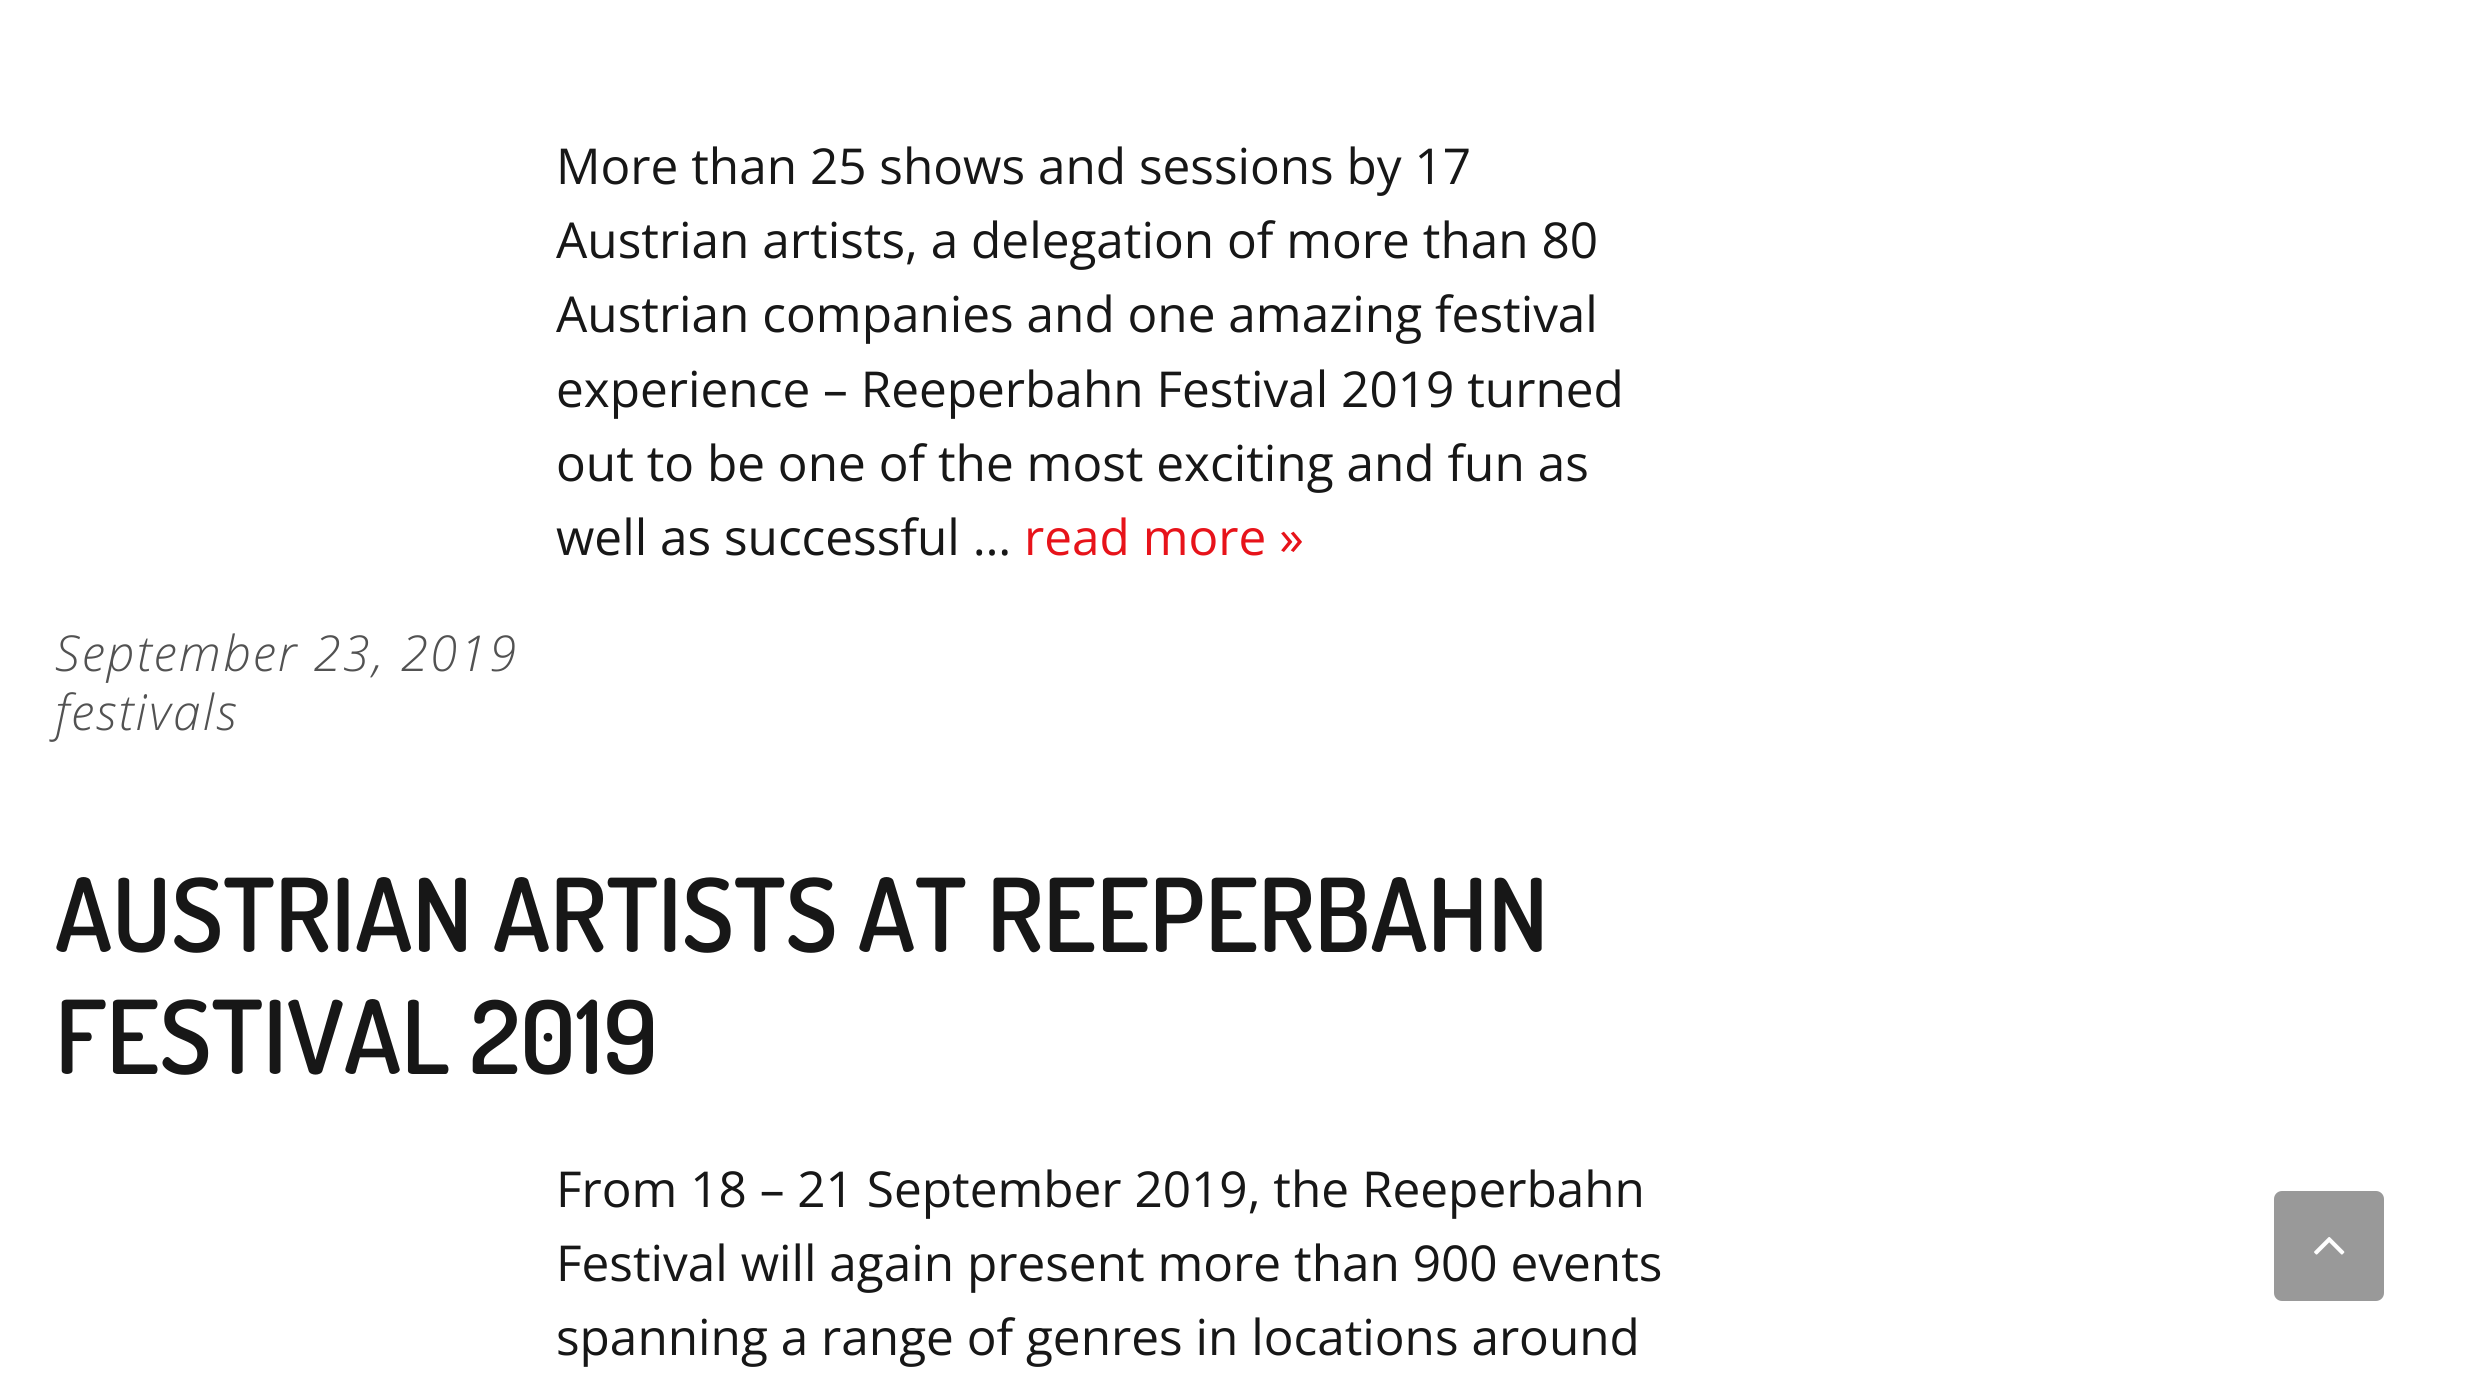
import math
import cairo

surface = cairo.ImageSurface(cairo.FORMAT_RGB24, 2465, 1382)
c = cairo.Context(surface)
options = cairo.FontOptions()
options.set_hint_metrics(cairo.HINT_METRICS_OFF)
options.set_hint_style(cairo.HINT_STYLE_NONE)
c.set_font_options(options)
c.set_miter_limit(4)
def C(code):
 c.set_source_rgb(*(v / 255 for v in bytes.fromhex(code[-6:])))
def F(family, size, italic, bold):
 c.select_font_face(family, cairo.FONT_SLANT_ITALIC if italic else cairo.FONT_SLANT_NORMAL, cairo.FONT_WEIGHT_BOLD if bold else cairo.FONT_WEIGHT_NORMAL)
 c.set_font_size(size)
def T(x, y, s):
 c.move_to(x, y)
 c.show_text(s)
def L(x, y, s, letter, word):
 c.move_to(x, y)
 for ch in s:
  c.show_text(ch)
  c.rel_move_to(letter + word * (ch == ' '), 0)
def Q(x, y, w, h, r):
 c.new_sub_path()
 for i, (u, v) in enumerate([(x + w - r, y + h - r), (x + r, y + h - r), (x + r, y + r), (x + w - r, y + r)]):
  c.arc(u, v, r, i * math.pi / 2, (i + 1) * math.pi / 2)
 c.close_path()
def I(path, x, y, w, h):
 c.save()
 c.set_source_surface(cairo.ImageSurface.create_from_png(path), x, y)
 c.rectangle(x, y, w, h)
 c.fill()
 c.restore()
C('ffffff')
c.paint()
F('Open Sans',49.5,0,0)
C('171717')
T(556,184,'More than 25 shows and sessions by 17')
T(556,258,'Austrian artists, a delegation of more than 80')
T(556,332,'Austrian companies and one amazing festival')
T(556,407,'experience – Reeperbahn Festival 2019 turned')
T(556,481,'out to be one of the most exciting and fun as')
T(556,555,'well as successful …')
C('e7131a')
T(1024,555,'read more »')
F('Open Sans Light',49.5,1,0)
C('525252')
L(55,671,'September 23, 2019',2.25,0)
L(55,730,'festivals',2.25,0)
F('Dosis SemiBold',101.75,0,0)
C('171717')
T(55,952,'AUSTRIAN ARTISTS AT REEPERBAHN')
T(55,1074,'FESTIVAL 2019')
F('Open Sans',49.5,0,0)
T(556,1207,'From 18 – 21 September 2019, the Reeperbahn')
T(556,1281,'Festival will again present more than 900 events')
T(556,1355,'spanning a range of genres in locations around')
C('999999')
Q(2274,1191,110,110,8)
c.fill()
I('1.png',2314,1237,31,18)
surface.write_to_png('o.png')
